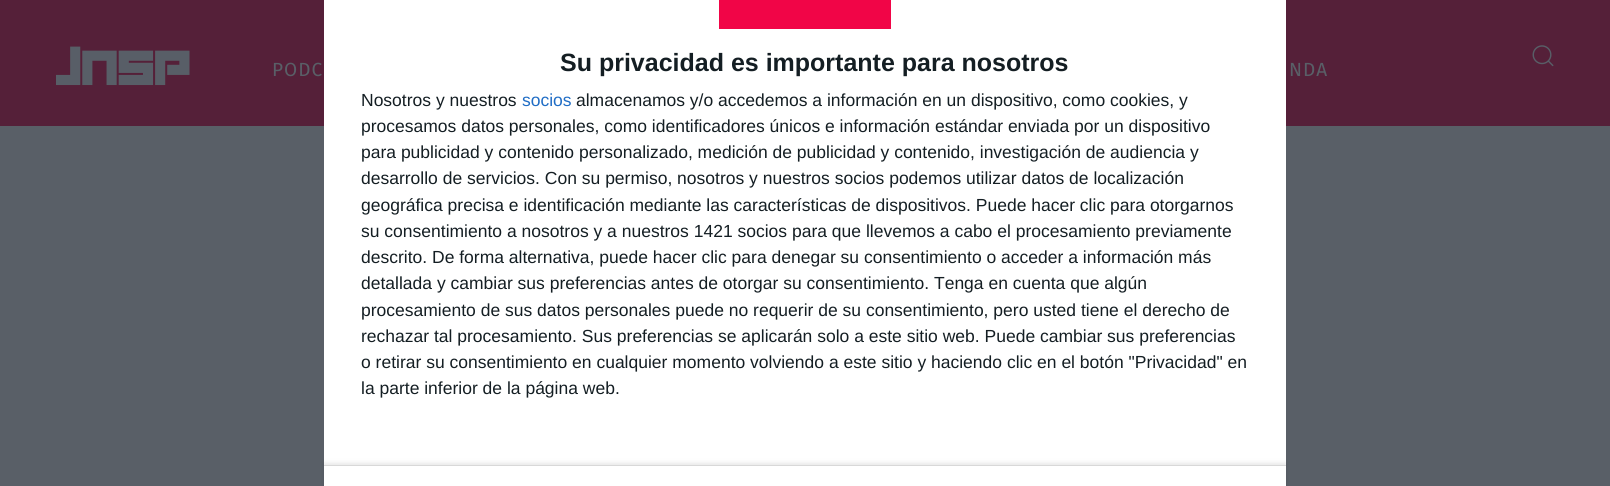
import math
import cairo

surface = cairo.ImageSurface(cairo.FORMAT_RGB24, 1610, 486)
c = cairo.Context(surface)
options = cairo.FontOptions()
options.set_hint_metrics(cairo.HINT_METRICS_OFF)
options.set_hint_style(cairo.HINT_STYLE_NONE)
c.set_font_options(options)
c.set_miter_limit(4)
def C(code):
 c.set_source_rgb(*(v / 255 for v in bytes.fromhex(code[-6:])))
def F(family, size, italic, bold):
 c.select_font_face(family, cairo.FONT_SLANT_ITALIC if italic else cairo.FONT_SLANT_NORMAL, cairo.FONT_WEIGHT_BOLD if bold else cairo.FONT_WEIGHT_NORMAL)
 c.set_font_size(size)
def T(x, y, s):
 c.move_to(x, y)
 c.show_text(s)
def L(x, y, s, letter, word):
 c.move_to(x, y)
 for ch in s:
  c.show_text(ch)
  c.rel_move_to(letter + word * (ch == ' '), 0)
def R(x, y, w, h):
 c.rectangle(x, y, w, h)
 c.fill()
def Q(x, y, w, h, r):
 c.new_sub_path()
 for i, (u, v) in enumerate([(x + w - r, y + h - r), (x + r, y + h - r), (x + r, y + r), (x + w - r, y + r)]):
  c.arc(u, v, r, i * math.pi / 2, (i + 1) * math.pi / 2)
 c.close_path()
def S(x, y, w, h, r, blur, alpha):
 c.push_group_with_content(cairo.CONTENT_ALPHA)
 c.set_operator(cairo.OPERATOR_SOURCE)
 for i in range(15, -16, -2):
  e = blur * i / 6
  if min(w, h) + 2 * e > 0:
   c.set_source_rgba(0, 0, 0, alpha * math.erfc((i - 1) / 8.5) / 2)
   Q(x - e, y - e, w + 2 * e, h + 2 * e, max(0, min(r + e + blur * .6, min(w, h) / 2 + e)))
   c.fill()
 c.mask(c.pop_group())
def I(path, x, y, w, h):
 c.save()
 c.set_source_surface(cairo.ImageSurface.create_from_png(path), x, y)
 c.rectangle(x, y, w, h)
 c.fill()
 c.restore()
C('595f67')
c.paint()
C('552039')
R(0,0,1610,126)
C('ffffff')
R(324,0,962,486)
C('f10547')
R(719,0,172,29)
F('Liberation Sans',25,0,1)
C('141e23')
T(560,71,'Su privacidad es importante para nosotros')
F('Liberation Sans',17.5,0,0)
T(361,106,'Nosotros y nuestros')
C('206dc5')
T(522,106,'socios')
C('141e23')
T(576,106,'almacenamos y/o accedemos a información en un dispositivo, como cookies, y')
T(361,132,'procesamos datos personales, como identificadores únicos e información estándar enviada por un dispositivo')
T(361,158,'para publicidad y contenido personalizado, medición de publicidad y contenido, investigación de audiencia y')
T(361,184,'desarrollo de servicios. Con su permiso, nosotros y nuestros socios podemos utilizar datos de localización')
T(361,211,'geográfica precisa e identificación mediante las características de dispositivos. Puede hacer clic para otorgarnos')
T(361,237,'su consentimiento a nosotros y a nuestros 1421 socios para que llevemos a cabo el procesamiento previamente')
T(361,263,'descrito. De forma alternativa, puede hacer clic para denegar su consentimiento o acceder a información más')
T(361,289,'detallada y cambiar sus preferencias antes de otorgar su consentimiento. Tenga en cuenta que algún')
T(361,316,'procesamiento de sus datos personales puede no requerir de su consentimiento, pero usted tiene el derecho de')
T(361,342,'rechazar tal procesamiento. Sus preferencias se aplicarán solo a este sitio web. Puede cambiar sus preferencias')
T(361,368,'o retirar su consentimiento en cualquier momento volviendo a este sitio y haciendo clic en el botón "Privacidad" en')
T(361,394,'la parte inferior de la página web.')
c.save()
c.set_fill_rule(cairo.FILL_RULE_EVEN_ODD)
c.new_path()
c.move_to(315,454)
c.line_to(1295,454)
c.line_to(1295,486)
c.line_to(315,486)
c.close_path()
c.move_to(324,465)
c.line_to(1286,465)
c.line_to(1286,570)
c.line_to(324,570)
c.close_path()
c.clip()
C('000000')
S(324,463,962,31,0,2.5,.1)
c.restore()
C('d8d8d8')
R(324,465,962,1)
I('1.png',56,46,134,40)
F('Fira Sans',19,0,0)
C('595f67')
L(272,76,'PODC',1,0)
L(1289,76,'NDA',1,0)
I('2.png',1532,45,22,22)
surface.write_to_png('o.png')
